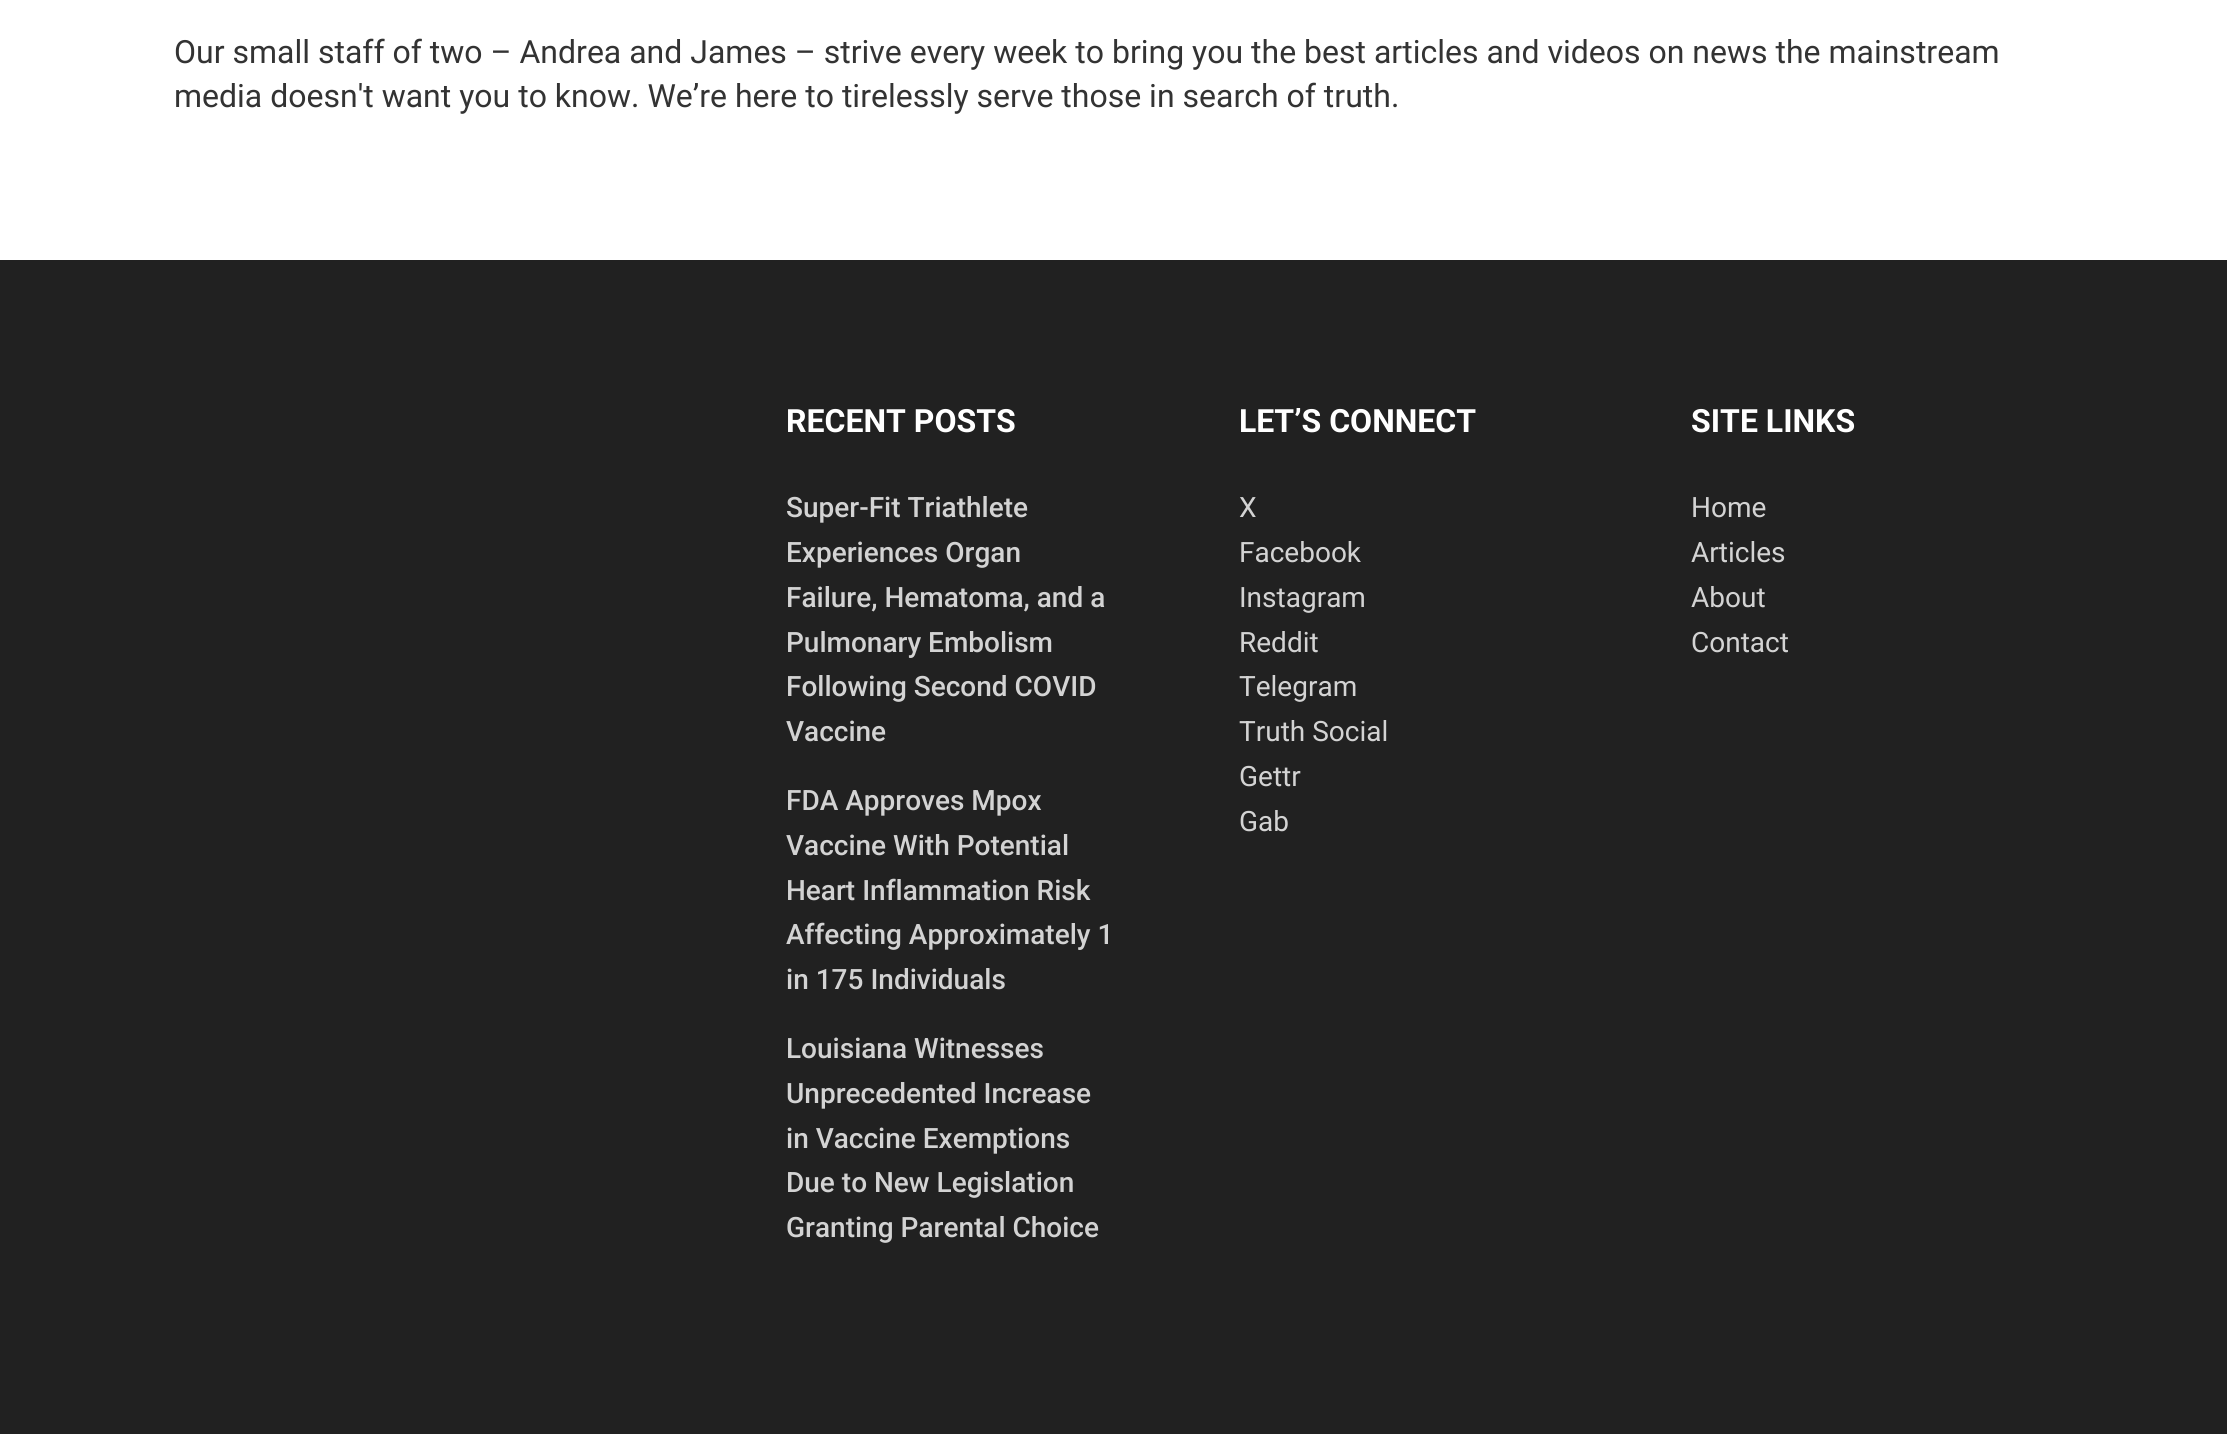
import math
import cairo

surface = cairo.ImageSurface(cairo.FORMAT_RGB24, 2227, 1434)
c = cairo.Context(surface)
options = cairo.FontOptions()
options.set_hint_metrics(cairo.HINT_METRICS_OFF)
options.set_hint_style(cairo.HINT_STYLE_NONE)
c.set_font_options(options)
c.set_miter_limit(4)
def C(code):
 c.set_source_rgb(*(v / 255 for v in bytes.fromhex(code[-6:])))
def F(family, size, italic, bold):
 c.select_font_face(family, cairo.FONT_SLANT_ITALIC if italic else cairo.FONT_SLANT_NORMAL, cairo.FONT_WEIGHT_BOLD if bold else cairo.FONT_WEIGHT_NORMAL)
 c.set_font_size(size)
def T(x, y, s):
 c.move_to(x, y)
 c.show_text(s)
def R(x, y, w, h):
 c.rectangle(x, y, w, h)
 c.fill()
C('ffffff')
c.paint()
F('Roboto',32,0,0)
C('333333')
T(174,63,'Our small staff of two – Andrea and James – strive every week to bring you the best articles and videos on news the mainstream')
T(174,107,'media doesn\'t want you to know. We’re here to tirelessly serve those in search of truth.')
C('212121')
R(0,260,2227,1174)
F('Roboto',32,0,1)
C('ffffff')
T(786,432,'RECENT POSTS')
F('Roboto Medium',28,0,0)
C('d3d3d3')
T(786,517,'Super-Fit Triathlete')
T(786,562,'Experiences Organ')
T(786,607,'Failure, Hematoma, and a')
T(786,652,'Pulmonary Embolism')
T(786,696,'Following Second COVID')
T(786,741,'Vaccine')
T(786,810,'FDA Approves Mpox')
T(786,855,'Vaccine With Potential')
T(786,900,'Heart Inflammation Risk')
T(786,944,'Affecting Approximately 1')
T(786,989,'in 175 Individuals')
T(786,1058,'Louisiana Witnesses')
T(786,1103,'Unprecedented Increase')
T(786,1148,'in Vaccine Exemptions')
T(786,1192,'Due to New Legislation')
T(786,1237,'Granting Parental Choice')
F('Roboto',32,0,1)
C('ffffff')
T(1239,432,'LET’S CONNECT')
F('Roboto',28,0,0)
C('d3d3d3')
T(1239,517,'X')
T(1239,562,'Facebook')
T(1239,607,'Instagram')
T(1239,652,'Reddit')
T(1239,696,'Telegram')
T(1239,741,'Truth Social')
T(1239,786,'Gettr')
T(1239,831,'Gab')
F('Roboto',32,0,1)
C('ffffff')
T(1691,432,'SITE LINKS')
F('Roboto',28,0,0)
C('d3d3d3')
T(1691,517,'Home')
T(1691,562,'Articles')
T(1691,607,'About')
T(1691,652,'Contact')
surface.write_to_png('o.png')
